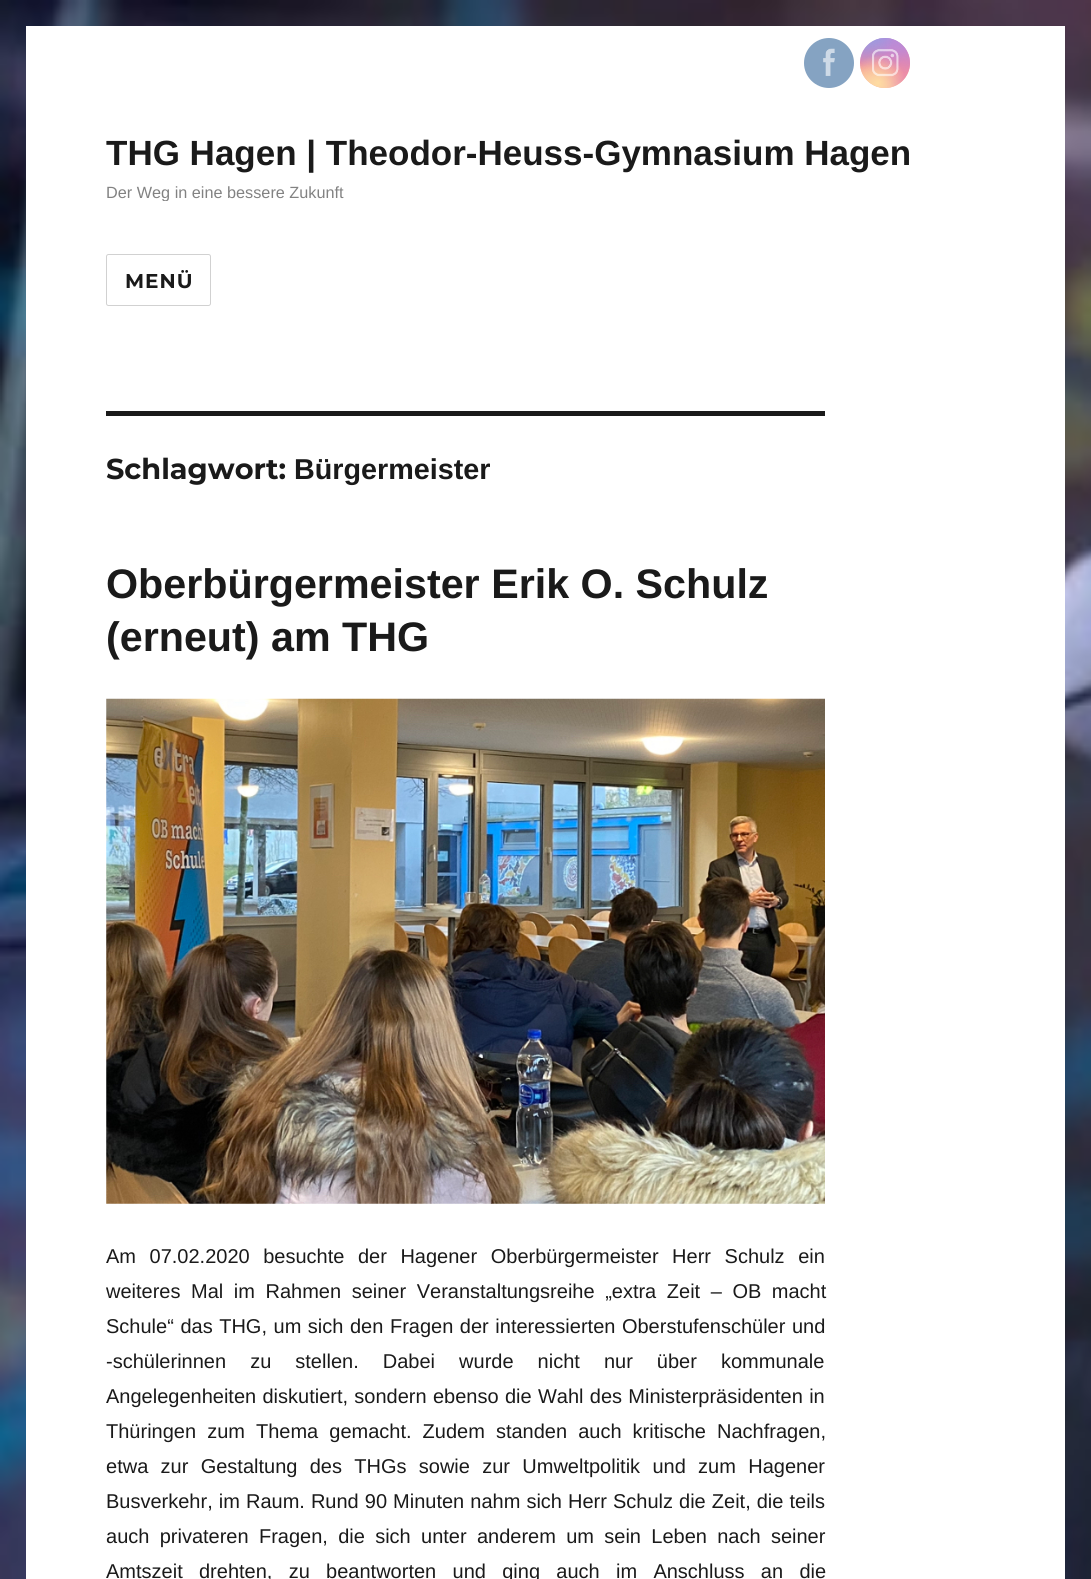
import math
import cairo

surface = cairo.ImageSurface(cairo.FORMAT_RGB24, 1091, 1579)
c = cairo.Context(surface)
options = cairo.FontOptions()
options.set_hint_metrics(cairo.HINT_METRICS_OFF)
options.set_hint_style(cairo.HINT_STYLE_NONE)
c.set_font_options(options)
c.set_miter_limit(4)
def C(code):
 c.set_source_rgb(*(v / 255 for v in bytes.fromhex(code[-6:])))
def F(family, size, italic, bold):
 c.select_font_face(family, cairo.FONT_SLANT_ITALIC if italic else cairo.FONT_SLANT_NORMAL, cairo.FONT_WEIGHT_BOLD if bold else cairo.FONT_WEIGHT_NORMAL)
 c.set_font_size(size)
def T(x, y, s):
 c.move_to(x, y)
 c.show_text(s)
def L(x, y, s, letter, word):
 c.move_to(x, y)
 for ch in s:
  c.show_text(ch)
  c.rel_move_to(letter + word * (ch == ' '), 0)
def R(x, y, w, h):
 c.rectangle(x, y, w, h)
 c.fill()
def Q(x, y, w, h, r):
 c.new_sub_path()
 for i, (u, v) in enumerate([(x + w - r, y + h - r), (x + r, y + h - r), (x + r, y + r), (x + w - r, y + r)]):
  c.arc(u, v, r, i * math.pi / 2, (i + 1) * math.pi / 2)
 c.close_path()
def I(path, x, y, w, h):
 c.save()
 c.set_source_surface(cairo.ImageSurface.create_from_png(path), x, y)
 c.rectangle(x, y, w, h)
 c.fill()
 c.restore()
C('ffffff')
c.paint()
I('1.png',0,0,1091,1579)
C('ffffff')
R(26,26,1039,1553)
C('85a3c2')
c.arc(829,63,25,0,2 * math.pi)
c.fill()
I('2.png',823,48,12,28)
gradient = cairo.LinearGradient(885,37,885,88)
gradient.add_color_stop_rgba(0,0.639,0.608,0.875,1)
gradient.add_color_stop_rgba(.3,0.843,0.514,0.737,1)
gradient.add_color_stop_rgba(.5,0.933,0.549,0.624,1)
gradient.add_color_stop_rgba(.7,0.98,0.678,0.533,1)
gradient.add_color_stop_rgba(1,0.996,0.867,0.655,1)
c.set_source(gradient)
c.arc(885,63,25,0,2 * math.pi)
c.fill()
gradient = cairo.RadialGradient(910,88,0,910,88,71)
gradient.add_color_stop_rgba(0,0.91,0.514,0.686,1)
gradient.add_color_stop_rgba(1,0.91,0.514,0.686,0)
c.set_source(gradient)
c.arc(885,63,25,0,2 * math.pi)
c.fill()
gradient = cairo.RadialGradient(0,0,0,0,0,1)
gradient.set_matrix(cairo.Matrix(1 / 42, 0, 0, 1 / 85, -1 * 890 / 42, -1 * 28 / 85))
gradient.add_color_stop_rgba(0,0.722,0.545,0.855,1)
gradient.add_color_stop_rgba(.5,0.722,0.545,0.855,0)
c.set_source(gradient)
c.arc(885,63,25,0,2 * math.pi)
c.fill()
gradient = cairo.RadialGradient(910,38,0,910,38,71)
gradient.add_color_stop_rgba(0,0.722,0.545,0.855,1)
gradient.add_color_stop_rgba(.5,0.722,0.545,0.855,0)
c.set_source(gradient)
c.arc(885,63,25,0,2 * math.pi)
c.fill()
gradient = cairo.RadialGradient(0,0,0,0,0,1)
gradient.set_matrix(cairo.Matrix(1 / 57, 0, 0, 1 / 106, -1 * 870 / 57, -1 * 13 / 106))
gradient.add_color_stop_rgba(0,0.592,0.608,0.886,1)
gradient.add_color_stop_rgba(.5,0.592,0.608,0.886,0)
c.set_source(gradient)
c.arc(885,63,25,0,2 * math.pi)
c.fill()
gradient = cairo.RadialGradient(0,0,0,0,0,1)
gradient.set_matrix(cairo.Matrix(1 / 71, 0, 0, 1 / 88, -1 * 860 / 71, -1 * 25 / 88))
gradient.add_color_stop_rgba(0,0.592,0.608,0.886,1)
gradient.add_color_stop_rgba(.5,0.592,0.608,0.886,0)
c.set_source(gradient)
c.arc(885,63,25,0,2 * math.pi)
c.fill()
gradient = cairo.RadialGradient(860,108,0,860,108,86)
gradient.add_color_stop_rgba(0,0.996,0.863,0.635,1)
gradient.add_color_stop_rgba(.5,0.996,0.863,0.635,0)
c.set_source(gradient)
c.arc(885,63,25,0,2 * math.pi)
c.fill()
gradient = cairo.RadialGradient(878,83,0,878,83,56)
gradient.add_color_stop_rgba(0,0.996,0.863,0.635,1)
gradient.add_color_stop_rgba(.5,0.996,0.863,0.635,0)
c.set_source(gradient)
c.arc(885,63,25,0,2 * math.pi)
c.fill()
I('3.png',872,49,27,28)
F('Liberation Sans',35,0,1)
C('1a1a1a')
T(106,165,'THG Hagen | Theodor-Heuss-Gymnasium Hagen')
c.save()
c.rectangle(106,131,805,70)
c.clip()
F('Liberation Sans',16.25,0,0)
C('828282')
T(106,198,'Der Weg in eine bessere Zukunft')
c.restore()
Q(106.5,254.5,104,51,2)
C('d1d1d1')
c.set_line_width(1)
c.stroke()
F('Montserrat',20,0,1)
C('1a1a1a')
L(125,288,'MENÜ',1,0)
R(106,411,719,5)
F('Montserrat',28.75,0,1)
T(106,479,'Schlagwort:')
F('Liberation Sans',28.75,0,1)
T(294,479,'Bürgermeister')
F('Liberation Sans',41.25,0,1)
T(106,598,'Oberbürgermeister Erik O. Schulz')
T(106,651,'(erneut) am THG')
I('4.png',106,698,719,506)
F('Liberation Sans',20,0,0)
L(106,1263,'Am 07.02.2020 besuchte der Hagener Oberbürgermeister Herr Schulz ein',0,8)
L(106,1298,'weiteres Mal im Rahmen seiner Veranstaltungsreihe „extra Zeit – OB macht',0,5)
L(106,1333,'Schule“ das THG, um sich den Fragen der interessierten Oberstufenschüler und',0,1)
L(106,1368,'-schülerinnen zu stellen. Dabei wurde nicht nur über kommunale',0,18.5)
L(106,1403,'Angelegenheiten diskutiert, sondern ebenso die Wahl des Ministerpräsidenten in',0,.75)
L(106,1438,'Thüringen zum Thema gemacht. Zudem standen auch kritische Nachfragen,',0,5.5)
L(106,1473,'etwa zur Gestaltung des THGs sowie zur Umweltpolitik und zum Hagener',0,6.75)
L(106,1508,'Busverkehr, im Raum. Rund 90 Minuten nahm sich Herr Schulz die Zeit, die teils',0,.5)
L(106,1543,'auch privateren Fragen, die sich unter anderem um sein Leben nach seiner',0,4.75)
L(106,1578,'Amtszeit drehten, zu beantworten und ging auch im Anschluss an die',0,10.75)
surface.write_to_png('o.png')
